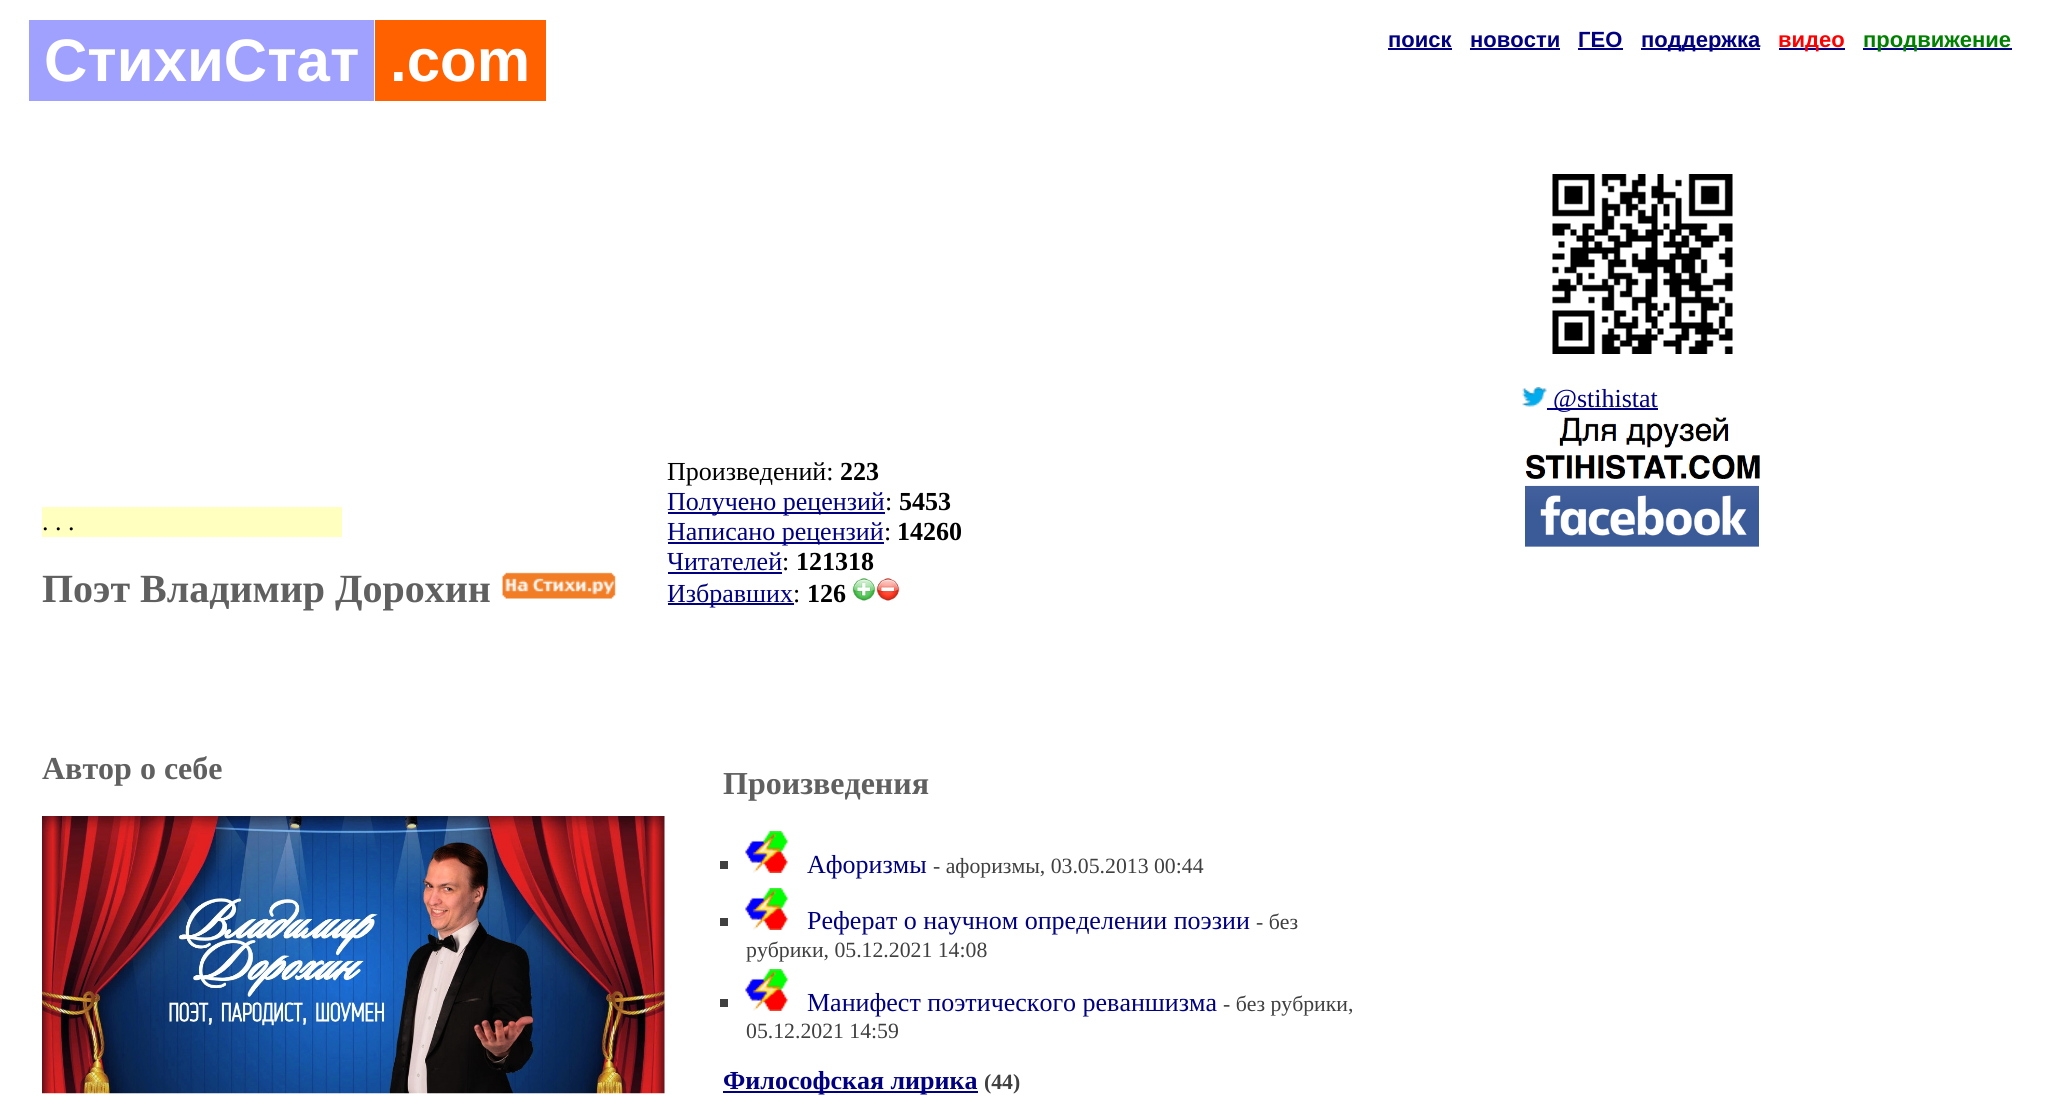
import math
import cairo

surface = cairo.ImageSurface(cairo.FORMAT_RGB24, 2050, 1115)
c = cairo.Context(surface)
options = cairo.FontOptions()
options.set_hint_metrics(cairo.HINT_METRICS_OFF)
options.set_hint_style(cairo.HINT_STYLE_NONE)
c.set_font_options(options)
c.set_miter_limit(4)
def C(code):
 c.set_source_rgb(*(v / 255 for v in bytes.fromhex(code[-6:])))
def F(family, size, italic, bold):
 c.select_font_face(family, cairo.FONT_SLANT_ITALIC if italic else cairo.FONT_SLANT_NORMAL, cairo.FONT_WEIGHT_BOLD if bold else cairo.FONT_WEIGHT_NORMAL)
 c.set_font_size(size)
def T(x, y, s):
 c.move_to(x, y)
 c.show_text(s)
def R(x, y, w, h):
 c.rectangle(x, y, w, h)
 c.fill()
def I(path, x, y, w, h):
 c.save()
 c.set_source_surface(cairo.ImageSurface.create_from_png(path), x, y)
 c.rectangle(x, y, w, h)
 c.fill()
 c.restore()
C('ffffff')
c.paint()
C('a0a0ff')
R(29,20,345,81)
F('Liberation Sans',60,0,1)
C('ffffff')
T(44,81,'СтихиСтат')
C('ff6000')
R(375,20,171,81)
C('ffffff')
T(390,81,'.com')
F('Liberation Sans',22,0,1)
C('000080')
T(1388,47,'поиск')
R(1388,48,64,2)
T(1470,47,'новости')
R(1470,48,90,2)
T(1578,47,'ГЕО')
R(1578,48,45,2)
R(1641,48,119,2)
T(1641,47,'поддержка')
R(1779,48,66,2)
C('ff0000')
T(1778,47,'видео')
C('000080')
R(1863,48,149,2)
C('008000')
T(1863,47,'продвижение')
I('1.png',1552,174,181,180)
I('2.png',1522,387,25,20)
C('000080')
R(1547,408,111,2)
F('Liberation Serif',26,0,0)
T(1553,407,'@stihistat')
I('3.png',1525,417,235,130)
C('ffffc0')
R(42,507,300,30)
C('000000')
T(42,530,'. . .')
F('Liberation Serif',40,0,1)
C('606060')
T(42,602,'Поэт Владимир Дорохин')
I('4.png',502,572,114,27)
F('Liberation Serif',26,0,0)
C('000000')
T(667,480,'Произведений:')
F('Liberation Serif',26,0,1)
T(840,480,'223')
C('000080')
R(668,512,217,2)
F('Liberation Serif',26,0,0)
T(667,510,'Получено рецензий')
C('000000')
T(885,510,':')
F('Liberation Serif',26,0,1)
T(899,510,'5453')
C('000080')
R(668,542,216,2)
F('Liberation Serif',26,0,0)
T(667,540,'Написано рецензий')
C('000000')
T(884,540,':')
F('Liberation Serif',26,0,1)
T(897,540,'14260')
F('Liberation Serif',26,0,0)
C('000080')
T(667,570,'Читателей')
R(668,572,114,2)
C('000000')
T(782,570,':')
F('Liberation Serif',26,0,1)
T(796,570,'121318')
C('000080')
R(668,603,126,2)
F('Liberation Serif',26,0,0)
T(667,602,'Избравших')
C('000000')
T(793,602,':')
F('Liberation Serif',26,0,1)
T(807,602,'126')
I('5.png',852,578,24,23)
I('6.png',876,578,24,23)
F('Liberation Serif',32,0,1)
C('606060')
T(42,779,'Автор о себе')
I('7.png',42,816,623,278)
T(723,794,'Произведения')
C('404040')
R(720,861,8,8)
I('8.png',745,831,43,42)
F('Liberation Serif',26,0,0)
C('000080')
T(807,873,'Афоризмы')
F('Liberation Serif',21.75,0,0)
C('404040')
T(933,873,'- афоризмы, 03.05.2013 00:44')
R(720,918,8,8)
I('8.png',745,888,43,42)
F('Liberation Serif',26,0,0)
C('000080')
T(807,929,'Реферат о научном определении поэзии')
F('Liberation Serif',21.75,0,0)
C('404040')
T(1256,929,'- без')
T(746,957,'рубрики, 05.12.2021 14:08')
R(720,999,8,8)
I('8.png',745,969,43,42)
F('Liberation Serif',26,0,0)
C('000080')
T(807,1011,'Манифест поэтического реваншизма')
F('Liberation Serif',21.75,0,0)
C('404040')
T(1223,1011,'- без рубрики,')
T(746,1038,'05.12.2021 14:59')
C('000080')
R(723,1091,255,2)
F('Liberation Serif',26,0,1)
T(723,1089,'Философская лирика')
F('Liberation Serif',21.75,0,1)
C('404040')
T(984,1089,'(44)')
surface.write_to_png('o.png')
